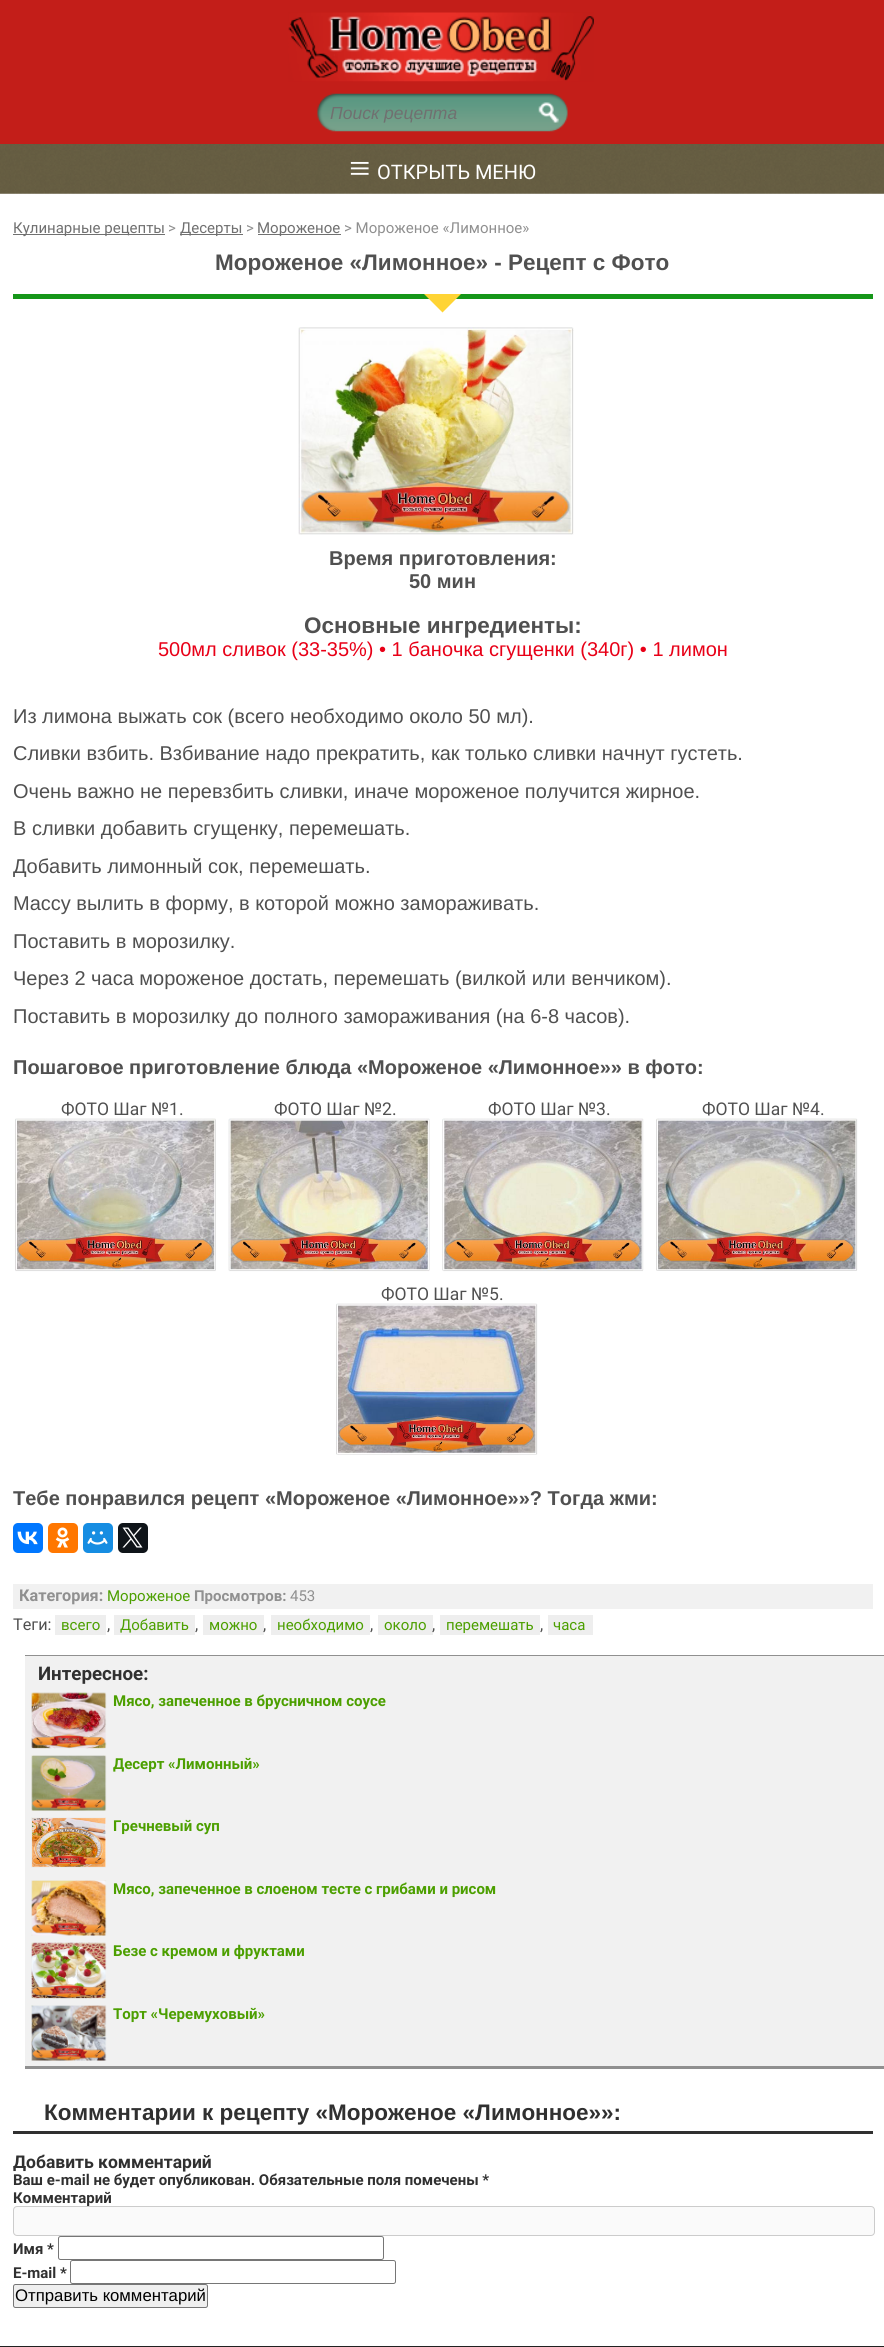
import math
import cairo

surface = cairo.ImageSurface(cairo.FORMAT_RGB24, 884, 2347)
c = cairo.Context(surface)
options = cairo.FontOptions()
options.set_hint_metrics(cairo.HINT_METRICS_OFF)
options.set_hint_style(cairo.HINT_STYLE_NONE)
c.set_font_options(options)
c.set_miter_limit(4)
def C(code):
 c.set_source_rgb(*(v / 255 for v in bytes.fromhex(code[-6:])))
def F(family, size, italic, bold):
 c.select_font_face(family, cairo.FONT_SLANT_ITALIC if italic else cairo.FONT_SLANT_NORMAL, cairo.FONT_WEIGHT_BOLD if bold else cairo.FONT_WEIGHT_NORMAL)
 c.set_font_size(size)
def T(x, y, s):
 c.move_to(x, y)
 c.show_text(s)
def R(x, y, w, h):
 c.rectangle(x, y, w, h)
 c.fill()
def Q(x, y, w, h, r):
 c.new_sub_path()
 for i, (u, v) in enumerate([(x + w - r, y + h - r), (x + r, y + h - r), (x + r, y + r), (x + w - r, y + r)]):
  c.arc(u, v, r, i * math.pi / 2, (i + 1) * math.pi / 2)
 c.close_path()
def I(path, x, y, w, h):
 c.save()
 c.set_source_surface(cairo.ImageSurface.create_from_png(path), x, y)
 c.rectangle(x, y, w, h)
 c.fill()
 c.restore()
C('ffffff')
c.paint()
C('c31e19')
R(0,0,884,144)
I('1.png',288,12,306,70)
I('2.png',317,93,251,39)
F('Liberation Sans',17.5,1,0)
C('707070')
T(330,119,'Поиск рецепта')
I('3.png',538,102,21,21)
I('4.png',0,193,884,1)
I('5.png',0,144,884,50)
F('Liberation Serif',38,0,0)
C('ffffff')
T(349,181,'≡')
F('Roboto',20,0,0)
T(377,179,'ОТКРЫТЬ МЕНЮ')
C('707070')
R(13,234,152,1)
F('Roboto',15,0,0)
T(13,233,'Кулинарные рецепты')
C('909090')
T(168,233,'>')
C('707070')
R(180,234,63,1)
T(180,233,'Десерты')
C('909090')
T(246,233,'>')
C('707070')
R(258,234,83,1)
T(257,233,'Мороженое')
C('909090')
T(344,233,'> Мороженое «Лимонное»')
F('Liberation Sans',22.5,0,1)
C('505050')
T(215,270,'Мороженое «Лимонное» - Рецепт с Фото')
C('159619')
R(13,294,860,5)
C('ffd434')
c.new_path()
c.move_to(424,294)
c.line_to(461,294)
c.line_to(442.5,312.5)
c.close_path()
c.fill()
I('6.png',298,327,276,208)
F('Liberation Sans',20,0,1)
C('505050')
T(329,565,'Время приготовления:')
T(409,588,'50 мин')
F('Liberation Sans',22.5,0,1)
T(304,633,'Основные ингредиенты:')
F('Liberation Sans',20,0,0)
C('e80017')
T(158,656,'500мл сливок (33-35%) • 1 баночка сгущенки (340г) • 1 лимон')
C('505050')
T(13,723,'Из лимона выжать сок (всего необходимо около 50 мл).')
T(13,760,'Сливки взбить. Взбивание надо прекратить, как только сливки начнут густеть.')
T(13,798,'Очень важно не перевзбить сливки, иначе мороженое получится жирное.')
T(13,835,'В сливки добавить сгущенку, перемешать.')
T(13,873,'Добавить лимонный сок, перемешать.')
T(13,910,'Массу вылить в форму, в которой можно замораживать.')
T(13,948,'Поставить в морозилку.')
T(13,985,'Через 2 часа мороженое достать, перемешать (вилкой или венчиком).')
T(13,1023,'Поставить в морозилку до полного замораживания (на 6-8 часов).')
F('Liberation Sans',20,0,1)
T(13,1074,'Пошаговое приготовление блюда «Мороженое «Лимонное»» в фото:')
F('Roboto',17.5,0,0)
T(61,1115,'ФОТО Шаг №1.')
I('7.png',15,1118,201,154)
T(274,1115,'ФОТО Шаг №2.')
I('8.png',228,1118,202,154)
T(488,1115,'ФОТО Шаг №3.')
I('9.png',442,1118,202,154)
T(702,1115,'ФОТО Шаг №4.')
I('10.png',656,1118,202,153)
T(381,1300,'ФОТО Шаг №5.')
I('11.png',336,1303,202,152)
F('Liberation Sans',20,0,1)
T(13,1505,'Тебе понравился рецепт «Мороженое «Лимонное»»? Тогда жми:')
C('0077ff')
Q(13,1523,30,30,5)
c.fill()
I('12.png',17,1531,21,14)
C('ff7700')
Q(48,1523,30,30,5)
c.fill()
I('13.png',55,1527,15,21)
C('168de2')
Q(83,1523,30,30,5)
c.fill()
I('14.png',87,1531,21,14)
C('0f1419')
Q(118,1523,30,30,5)
c.fill()
I('15.png',122,1527,21,21)
C('f1f1f1')
R(13,1584,860,25)
F('Roboto',16.25,0,1)
C('909090')
T(19,1601,'Категория:')
F('Roboto',15,0,0)
C('4c9f00')
T(107,1601,'Мороженое')
F('Roboto',15,0,1)
C('909090')
T(194,1601,'Просмотров:')
F('Roboto',15,0,0)
T(290,1601,'453')
F('Roboto',16.25,0,0)
C('505050')
T(13,1630,'Теги:')
C('eeeeee')
R(55,1615,51,20)
F('Roboto',15,0,0)
C('4c9f00')
T(61,1630,'всего')
F('Roboto',16.25,0,0)
C('505050')
T(107,1630,',')
C('eeeeee')
R(114,1615,81,20)
F('Roboto',15,0,0)
C('4c9f00')
T(120,1630,'Добавить')
F('Roboto',16.25,0,0)
C('505050')
T(195,1630,',')
C('eeeeee')
R(203,1615,61,20)
F('Roboto',15,0,0)
C('4c9f00')
T(209,1630,'можно')
F('Roboto',16.25,0,0)
C('505050')
T(263,1630,',')
C('eeeeee')
R(271,1615,99,20)
F('Roboto',15,0,0)
C('4c9f00')
T(277,1630,'необходимо')
F('Roboto',16.25,0,0)
C('505050')
T(370,1630,',')
C('eeeeee')
R(378,1615,55,20)
F('Roboto',15,0,0)
C('4c9f00')
T(384,1630,'около')
F('Roboto',16.25,0,0)
C('505050')
T(432,1630,',')
C('eeeeee')
R(440,1615,100,20)
F('Roboto',15,0,0)
C('4c9f00')
T(446,1630,'перемешать')
F('Roboto',16.25,0,0)
C('505050')
T(540,1630,',')
C('eeeeee')
R(548,1615,45,20)
F('Roboto',15,0,0)
C('4c9f00')
T(553,1630,'часа')
C('f1f1f1')
R(25,1656,859,410)
C('909090')
R(25,1655,859,1)
R(25,2066,859,3)
F('Roboto',18.75,0,1)
C('303030')
T(38,1680,'Интересное:')
I('16.png',31,1692,76,57)
F('Roboto',15,0,1)
C('4c9f00')
T(113,1706,'Мясо, запеченное в брусничном соусе')
I('17.png',31,1755,76,56)
T(113,1769,'Десерт «Лимонный»')
I('18.png',31,1817,75,51)
T(113,1831,'Гречневый суп')
I('19.png',31,1880,76,56)
T(113,1894,'Мясо, запеченное в слоеном тесте с грибами и рисом')
I('20.png',31,1942,76,57)
T(113,1956,'Безе с кремом и фруктами')
I('21.png',31,2005,76,56)
T(113,2019,'Торт «Черемуховый»')
C('303030')
R(13,2131,860,3)
F('Liberation Sans',22.5,0,1)
T(44,2120,'Комментарии к рецепту «Мороженое «Лимонное»»:')
F('Roboto',17.5,0,1)
T(13,2168,'Добавить комментарий')
F('Roboto',15,0,1)
T(13,2185,'Ваш e-mail не будет опубликован. Обязательные поля помечены *')
T(13,2203,'Комментарий')
C('fafafa')
Q(13.5,2206.5,861,29,3.5)
c.fill_preserve()
C('cccccc')
c.set_line_width(1)
c.stroke()
C('303030')
T(13,2254,'Имя *')
Q(58.5,2236.5,325,23,2)
C('767676')
c.stroke()
C('303030')
T(13,2278,'E-mail *')
Q(70.5,2260.5,325,23,2)
C('767676')
c.stroke()
C('efefef')
Q(13.5,2284.5,194,23,2)
c.fill_preserve()
C('767676')
c.stroke()
F('Liberation Sans',16.75,0,0)
C('000000')
T(15,2301,'Отправить комментарий')
C('202020')
R(0,2346,884,1)
surface.write_to_png('o.png')
